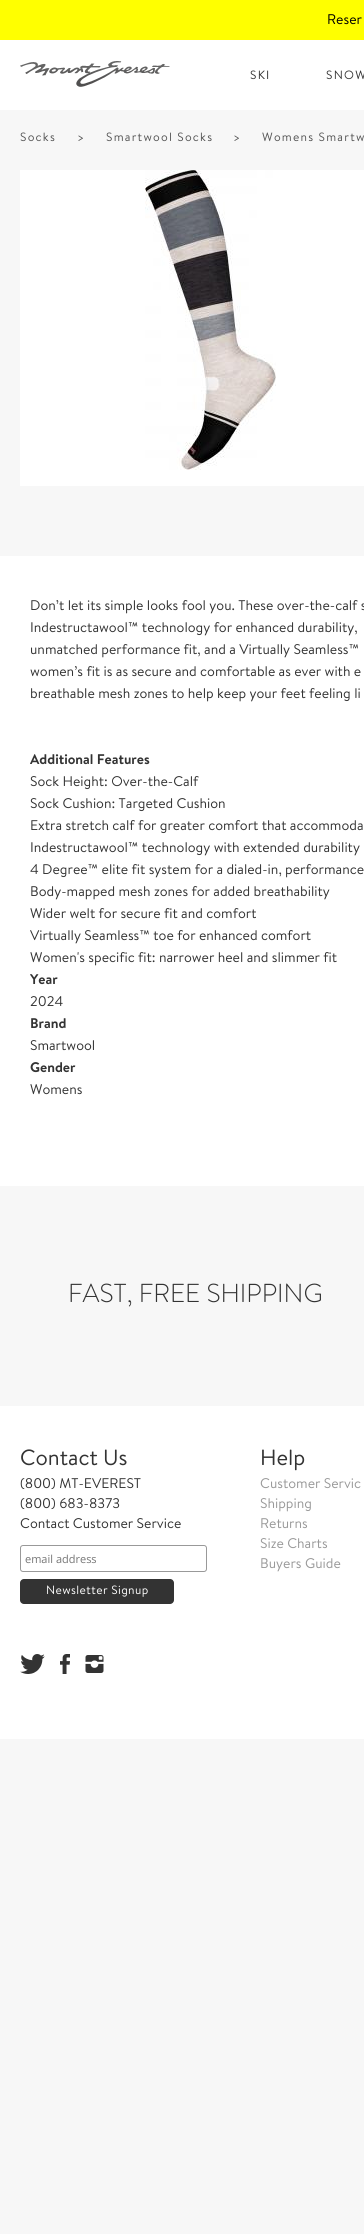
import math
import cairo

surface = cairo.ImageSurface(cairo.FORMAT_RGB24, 364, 2234)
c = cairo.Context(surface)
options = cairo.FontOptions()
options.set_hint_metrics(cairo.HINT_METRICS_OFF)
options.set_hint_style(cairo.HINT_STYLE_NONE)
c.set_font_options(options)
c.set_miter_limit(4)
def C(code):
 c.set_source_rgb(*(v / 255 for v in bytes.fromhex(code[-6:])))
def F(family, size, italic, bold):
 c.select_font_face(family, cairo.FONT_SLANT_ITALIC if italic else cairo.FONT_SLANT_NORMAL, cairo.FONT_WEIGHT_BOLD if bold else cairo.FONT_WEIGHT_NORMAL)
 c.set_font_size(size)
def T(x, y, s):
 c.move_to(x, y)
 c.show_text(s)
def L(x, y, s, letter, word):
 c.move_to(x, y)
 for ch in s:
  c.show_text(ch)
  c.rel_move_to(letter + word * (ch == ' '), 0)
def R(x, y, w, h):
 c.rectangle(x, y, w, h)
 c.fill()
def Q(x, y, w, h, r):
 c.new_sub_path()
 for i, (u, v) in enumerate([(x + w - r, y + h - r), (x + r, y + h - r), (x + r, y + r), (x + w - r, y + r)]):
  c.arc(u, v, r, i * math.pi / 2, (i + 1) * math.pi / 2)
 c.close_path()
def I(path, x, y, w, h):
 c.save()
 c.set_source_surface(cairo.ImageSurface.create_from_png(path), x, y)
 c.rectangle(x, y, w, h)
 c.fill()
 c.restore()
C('f7f7f7')
c.paint()
C('ffffff')
R(0,40,364,70)
C('ffff00')
R(0,0,364,40)
F('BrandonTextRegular',14,0,0)
C('000000')
T(327,24,'Reser')
I('1.png',20,61,150,26)
F('BrandonTextRegular',12,0,0)
C('333333')
L(250,79,'SKI',1.25,0)
L(326,79,'SNOW',1.25,0)
C('545454')
L(20,141,'Socks',1.25,0)
L(77,141,'>',1.25,0)
L(106,141,'Smartwool Socks',1.25,0)
L(233,141,'>',1.25,0)
L(262,141,'Womens Smartw',1.25,0)
C('ffffff')
R(20,170,344,316)
I('2.png',145,170,131,300)
R(0,556,364,630)
F('BrandonTextRegular',14,0,0)
C('333333')
T(30,610,'Don’t let its simple looks fool you. These over-the-calf s')
T(30,632,'Indestructawool™ technology for enhanced durability,')
T(30,654,'unmatched performance fit, and a Virtually Seamless™')
T(30,676,'women’s fit is as secure and comfortable as ever with e')
T(30,698,'breathable mesh zones to help keep your feet feeling li')
F('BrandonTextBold',14,0,1)
T(30,764,'Additional Features')
F('BrandonTextRegular',14,0,0)
T(30,786,'Sock Height: Over-the-Calf')
T(30,808,'Sock Cushion: Targeted Cushion')
T(30,830,'Extra stretch calf for greater comfort that accommoda')
T(30,852,'Indestructawool™ technology with extended durability')
T(30,874,'4 Degree™ elite fit system for a dialed-in, performance')
T(30,896,'Body-mapped mesh zones for added breathability')
T(30,918,'Wider welt for secure fit and comfort')
T(30,940,'Virtually Seamless™ toe for enhanced comfort')
T(30,962,'Women\'s specific fit: narrower heel and slimmer fit')
F('BrandonTextBold',14,0,1)
T(30,984,'Year')
F('BrandonTextRegular',14,0,0)
T(30,1006,'2024')
F('BrandonTextBold',14,0,1)
T(30,1028,'Brand')
F('BrandonTextRegular',14,0,0)
T(30,1050,'Smartwool')
F('BrandonTextBold',14,0,1)
T(30,1072,'Gender')
F('BrandonTextRegular',14,0,0)
T(30,1094,'Womens')
F('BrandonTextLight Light',26,0,0)
T(68,1302,'FAST, FREE SHIPPING')
C('ffffff')
R(0,1406,364,333)
F('BrandonTextRegular',22,0,0)
C('333333')
T(20,1465,'Contact Us')
F('BrandonTextRegular',14,0,0)
T(20,1488,'(800) MT-EVEREST')
T(20,1508,'(800) 683-8373')
T(20,1528,'Contact Customer Service')
Q(20.5,1545.5,186,26,2.5)
C('999999')
c.set_line_width(1)
c.stroke()
F('Open Sans',11,0,0)
C('757575')
T(25,1563,'email address')
C('333333')
Q(20,1579,154,25,4)
c.fill()
F('BrandonTextRegular',12,0,0)
C('ffffff')
L(46,1594,'Newsletter Signup',.4,0)
I('3.png',20,1654,25,20)
I('4.png',60,1654,10,20)
I('5.png',85,1655,19,18)
F('BrandonTextRegular',22,0,0)
C('333333')
T(260,1465,'Help')
F('BrandonTextRegular',14,0,0)
C('999999')
T(260,1488,'Customer Servic')
T(260,1508,'Shipping')
T(260,1528,'Returns')
T(260,1548,'Size Charts')
T(260,1568,'Buyers Guide')
surface.write_to_png('o.png')
